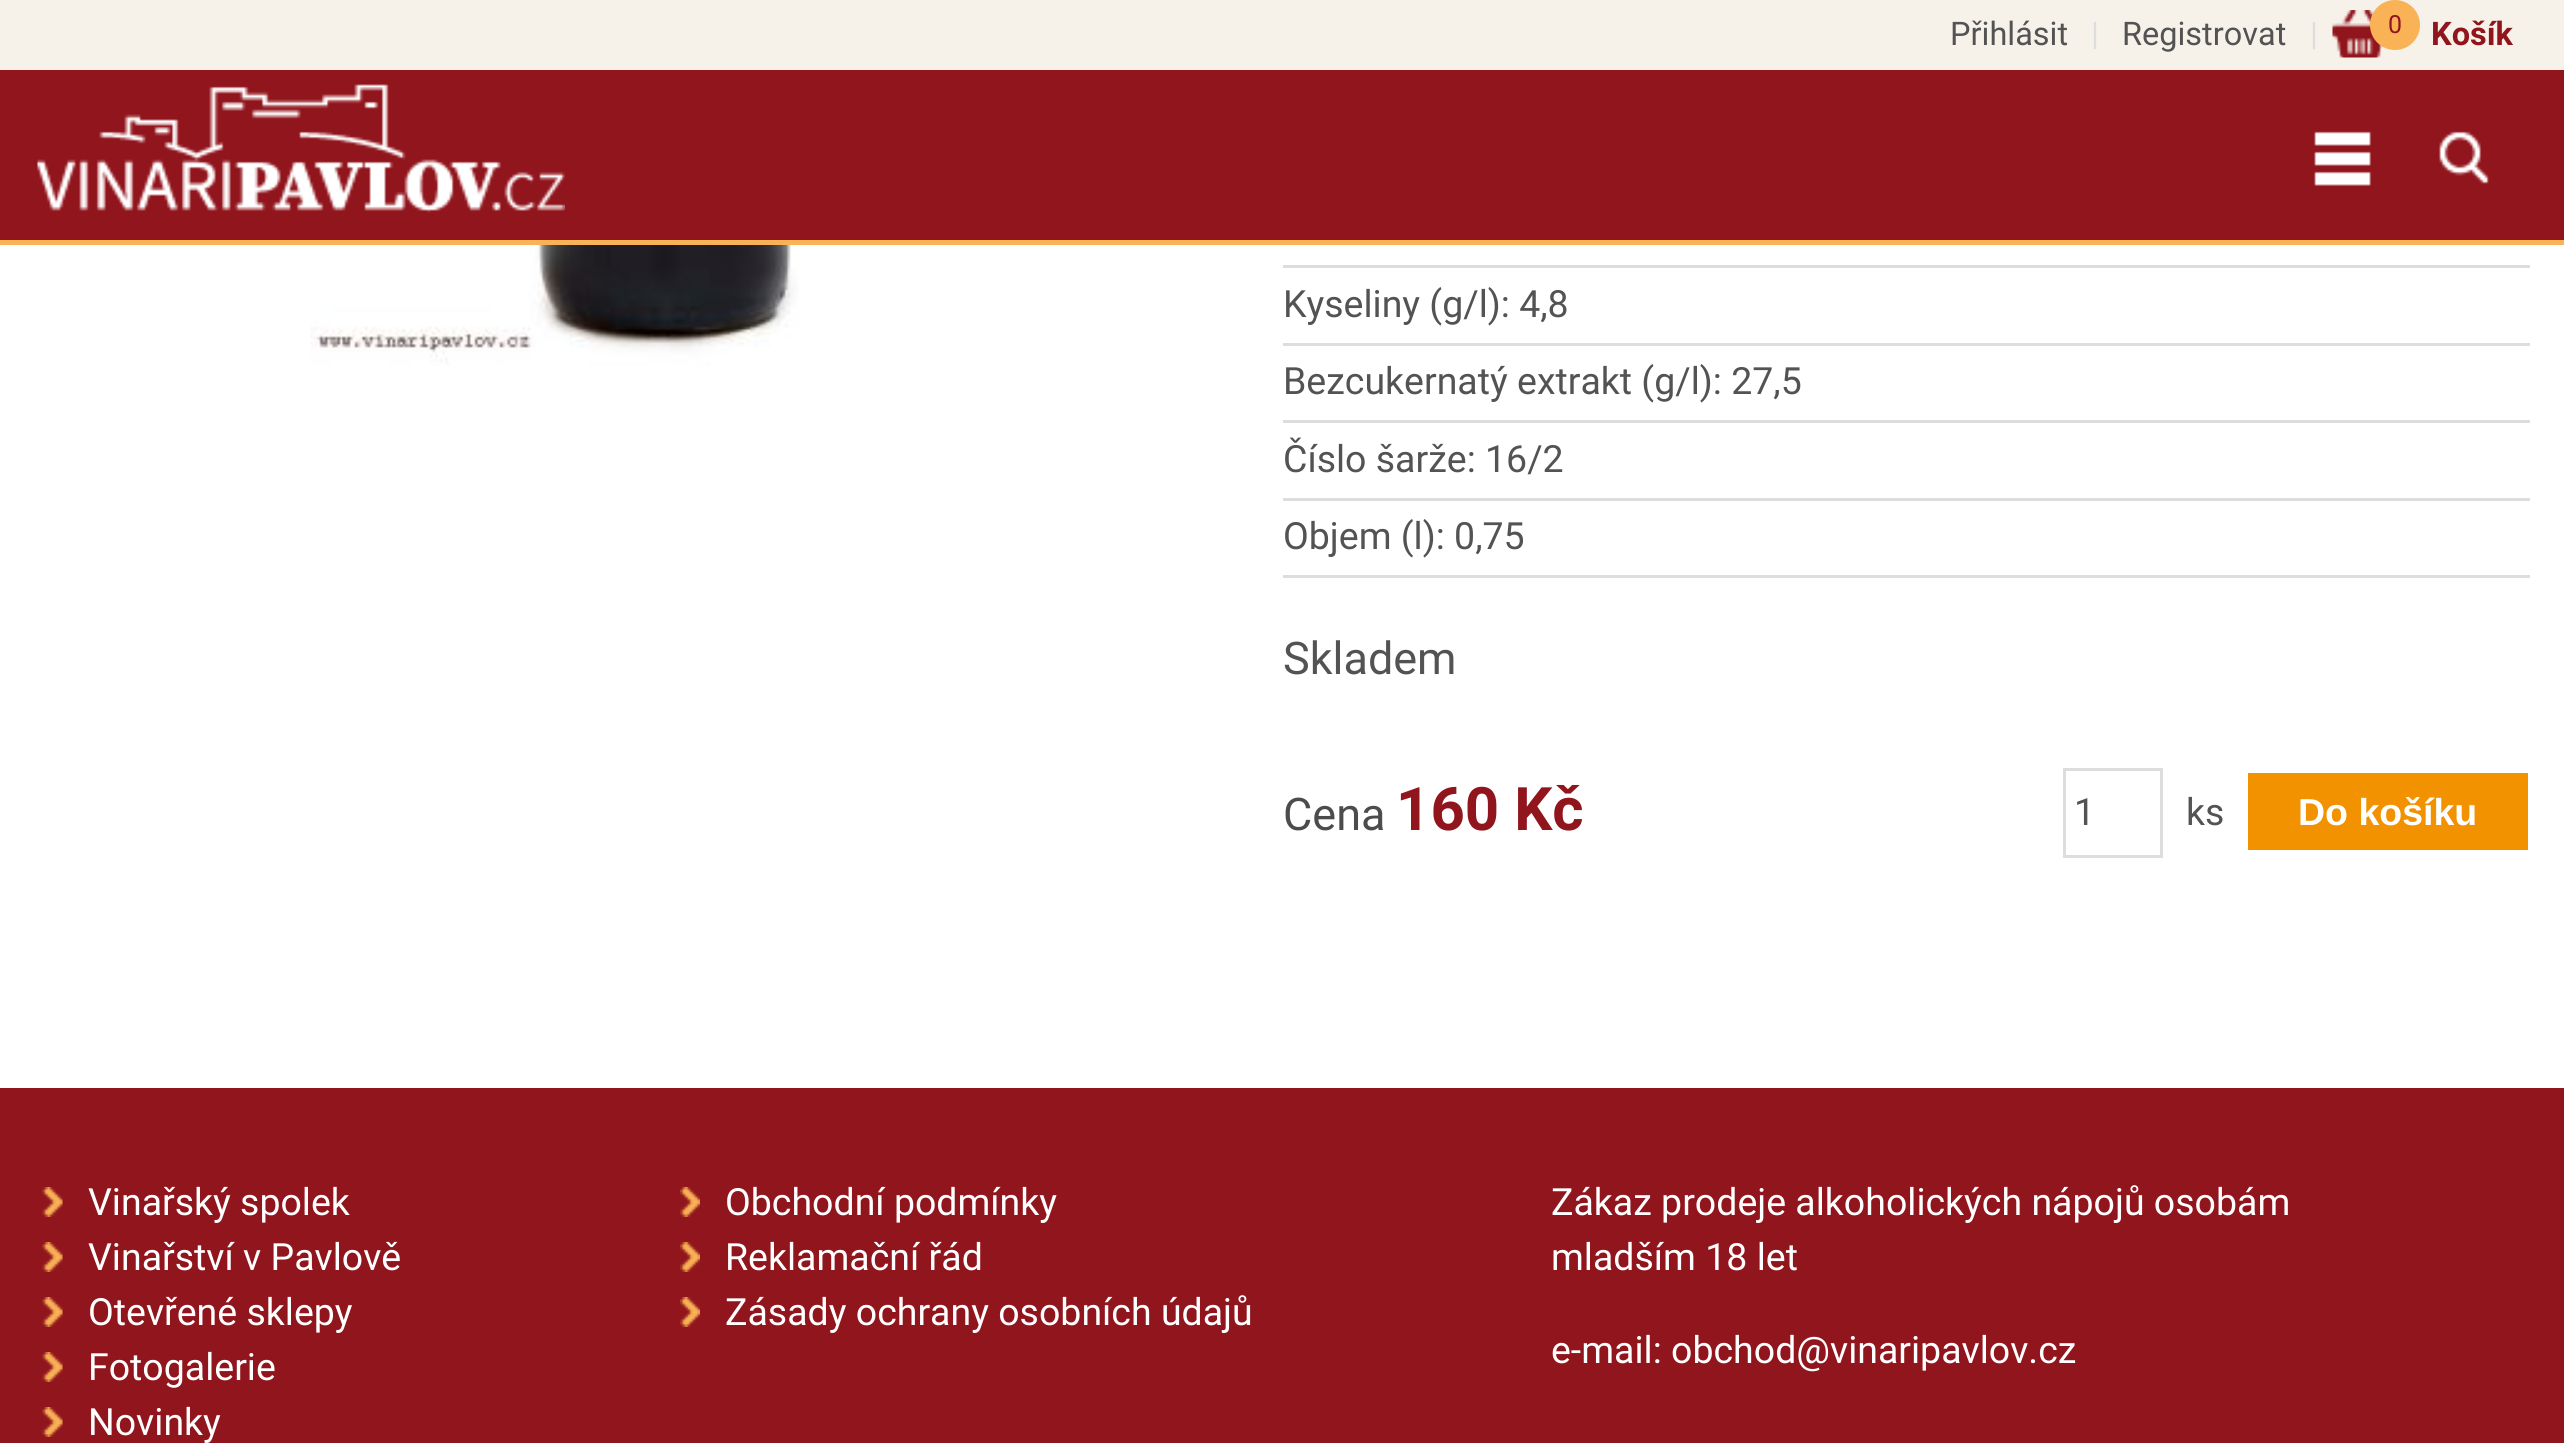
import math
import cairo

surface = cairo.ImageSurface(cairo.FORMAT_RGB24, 2564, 1443)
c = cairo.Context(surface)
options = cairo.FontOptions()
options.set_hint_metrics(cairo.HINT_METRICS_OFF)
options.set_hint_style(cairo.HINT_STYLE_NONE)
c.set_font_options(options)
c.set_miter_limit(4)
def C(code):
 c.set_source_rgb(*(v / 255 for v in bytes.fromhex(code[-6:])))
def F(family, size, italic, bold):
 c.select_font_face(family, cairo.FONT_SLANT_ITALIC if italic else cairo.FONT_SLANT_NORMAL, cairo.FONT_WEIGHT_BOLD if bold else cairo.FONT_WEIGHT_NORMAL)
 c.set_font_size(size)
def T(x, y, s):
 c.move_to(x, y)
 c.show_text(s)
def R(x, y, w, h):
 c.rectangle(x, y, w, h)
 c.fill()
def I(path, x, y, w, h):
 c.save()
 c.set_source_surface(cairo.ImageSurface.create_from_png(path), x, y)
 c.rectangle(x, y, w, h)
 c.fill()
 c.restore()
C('ffffff')
c.paint()
C('f6f2ea')
R(0,0,2564,70)
F('Roboto',32.5,0,0)
C('535353')
T(1950,45,'Přihlásit')
C('dddddd')
T(2091,45,'|')
C('535353')
T(2122,45,'Registrovat')
C('dddddd')
T(2310,45,'|')
I('1.png',2332,10,52,48)
C('f9b256')
c.arc(2395,25,25,0,2 * math.pi)
c.fill()
F('Roboto',25,0,0)
C('91151d')
T(2388,33,'0')
F('Roboto',32.5,0,1)
T(2431,45,'Košík')
R(0,70,2564,170)
C('f9b256')
R(0,240,2564,5)
I('2.png',37,84,528,129)
I('3.png',2314,131,57,55)
I('4.png',2439,131,50,53)
I('5.png',310,245,489,121)
C('dddddd')
R(1283,265,1247,3)
R(1283,343,1247,3)
F('Roboto',37.5,0,0)
C('535353')
T(1283,317,'Kyseliny (g/l): 4,8')
C('dddddd')
R(1283,420,1247,3)
C('535353')
T(1283,394,'Bezcukernatý extrakt (g/l): 27,5')
C('dddddd')
R(1283,498,1247,3)
C('535353')
T(1283,472,'Číslo šarže: 16/2')
C('dddddd')
R(1283,575,1247,3)
C('535353')
T(1283,549,'Objem (l): 0,75')
F('Roboto',45,0,0)
T(1283,674,'Skladem')
C('4c4c4c')
T(1283,830,'Cena')
F('Roboto',60,0,1)
C('91151d')
T(1396,830,'160 Kč')
c.rectangle(2064.5,769.5,97,87)
C('dddddd')
c.set_line_width(3)
c.stroke()
F('Roboto',37.5,0,0)
C('535353')
T(2074,825,'1')
T(2186,825,'ks')
C('f39200')
R(2248,773,280,77)
F('Liberation Sans',37.5,0,1)
C('ffffff')
T(2298,825,'Do košíku')
C('91151d')
R(0,1088,2564,355)
I('6.png',42,1187,21,30)
F('Roboto',37.5,0,0)
C('ffffff')
T(88,1215,'Vinařský spolek')
I('7.png',42,1242,21,30)
T(88,1270,'Vinařství v Pavlově')
I('6.png',42,1297,21,30)
T(88,1325,'Otevřené sklepy')
I('6.png',42,1352,21,30)
T(88,1380,'Fotogalerie')
I('6.png',42,1407,21,30)
T(88,1435,'Novinky')
I('8.png',680,1187,20,30)
T(725,1215,'Obchodní podmínky')
I('9.png',680,1242,20,30)
T(725,1270,'Reklamační řád')
I('8.png',680,1297,20,30)
T(725,1325,'Zásady ochrany osobních údajů')
T(1551,1215,'Zákaz prodeje alkoholických nápojů osobám')
T(1551,1270,'mladším 18 let')
T(1551,1363,'e-mail: obchod@vinaripavlov.cz')
surface.write_to_png('o.png')
